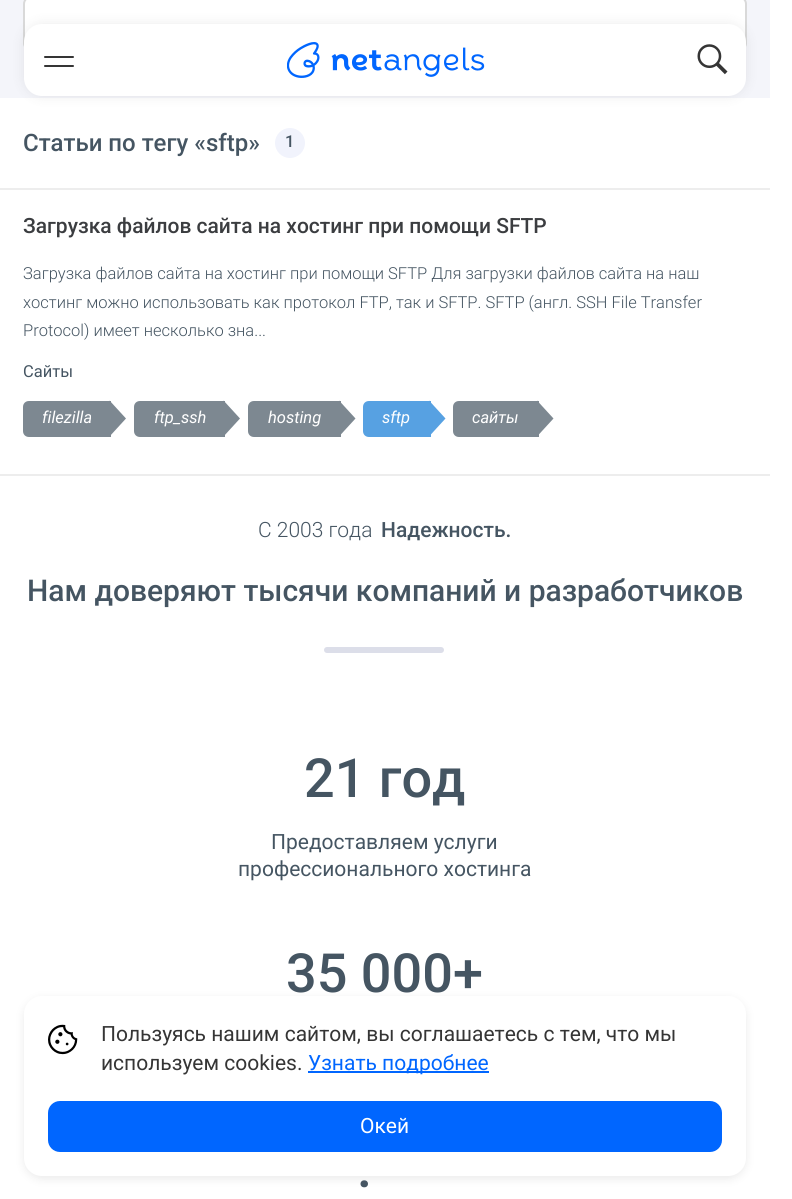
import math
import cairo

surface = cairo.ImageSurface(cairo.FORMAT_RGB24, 792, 1199)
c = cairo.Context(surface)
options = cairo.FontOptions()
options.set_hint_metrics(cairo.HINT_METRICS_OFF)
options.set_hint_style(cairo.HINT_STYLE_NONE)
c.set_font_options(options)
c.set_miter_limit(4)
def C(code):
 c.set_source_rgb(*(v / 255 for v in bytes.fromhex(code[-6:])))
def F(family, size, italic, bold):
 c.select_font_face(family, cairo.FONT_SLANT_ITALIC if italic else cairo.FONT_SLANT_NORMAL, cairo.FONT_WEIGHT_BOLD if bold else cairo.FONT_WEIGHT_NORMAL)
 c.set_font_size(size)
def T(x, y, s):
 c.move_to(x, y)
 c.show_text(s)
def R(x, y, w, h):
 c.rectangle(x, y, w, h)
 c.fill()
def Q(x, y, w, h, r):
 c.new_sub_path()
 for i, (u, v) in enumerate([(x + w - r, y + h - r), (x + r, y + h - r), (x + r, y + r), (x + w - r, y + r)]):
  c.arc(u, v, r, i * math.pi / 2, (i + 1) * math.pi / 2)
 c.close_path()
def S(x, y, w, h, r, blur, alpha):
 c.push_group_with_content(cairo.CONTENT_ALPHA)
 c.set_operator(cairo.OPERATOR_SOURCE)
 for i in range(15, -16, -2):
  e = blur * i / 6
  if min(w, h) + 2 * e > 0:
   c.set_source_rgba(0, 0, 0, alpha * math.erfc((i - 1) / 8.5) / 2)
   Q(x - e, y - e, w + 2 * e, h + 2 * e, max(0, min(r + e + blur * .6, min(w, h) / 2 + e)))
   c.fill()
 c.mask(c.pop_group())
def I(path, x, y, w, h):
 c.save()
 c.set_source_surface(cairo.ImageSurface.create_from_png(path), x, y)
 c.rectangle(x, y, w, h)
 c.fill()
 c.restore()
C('ffffff')
c.paint()
C('f4f5fa')
R(0,0,770,98)
C('ffffff')
Q(24,-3,722,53,7)
c.fill_preserve()
C('d9d9d9')
c.stroke()
C('353535')
S(24,24,722,72,18,6,.1)
C('ffffff')
Q(24,24,722,72,18)
c.fill()
C('353535')
Q(44,56,30,2,1)
c.fill()
Q(44,65,30,2,1)
c.fill()
I('1.png',287,42,198,36)
I('2.png',697,44,31,31)
C('ededed')
R(0,474,770,2)
F('Roboto Medium',24,0,0)
C('455562')
T(23,151,'Статьи по тегу «sftp»')
C('f1f3fc')
c.new_path()
c.arc(290,143,15,0,2 * math.pi)
c.fill()
F('Roboto Medium',16.5,0,0)
C('455562')
T(285,147,'1')
C('ededed')
R(0,188,770,2)
F('Roboto Medium',21,0,0)
C('3b3d40')
T(23,233,'Загрузка файлов сайта на хостинг при помощи SFTP')
F('Roboto Light',16.5,0,0)
C('455562')
T(23,279,'Загрузка файлов сайта на хостинг при помощи SFTP Для загрузки файлов сайта на наш')
T(23,308,'хостинг можно использовать как протокол FTP, так и SFTP. SFTP (англ. SSH File Transfer')
T(23,336,'Protocol) имеет несколько зна...')
F('Roboto',16.5,0,0)
T(23,377,'Сайты')
C('7d8891')
c.new_path()
c.move_to(29,401)
c.line_to(111,401)
c.line_to(111,437)
c.line_to(29,437)
c.curve_to(25.5,437,23,434.5,23,431)
c.line_to(23,407)
c.curve_to(23,403.5,25.5,401,29,401)
c.close_path()
c.fill()
F('Roboto',16.5,1,0)
C('ffffff')
T(42,423,'filezilla')
C('7d8891')
c.new_path()
c.move_to(109.5,436.5)
c.line_to(109.5,400.5)
c.line_to(126,418.5)
c.close_path()
c.fill()
c.new_path()
c.move_to(140,401)
c.line_to(225,401)
c.line_to(225,437)
c.line_to(140,437)
c.curve_to(136.5,437,134,434.5,134,431)
c.line_to(134,407)
c.curve_to(134,403.5,136.5,401,140,401)
c.close_path()
c.fill()
C('ffffff')
T(154,423,'ftp_ssh')
C('7d8891')
c.new_path()
c.move_to(223.5,436.5)
c.line_to(223.5,400.5)
c.line_to(240,418.5)
c.close_path()
c.fill()
c.new_path()
c.move_to(254,401)
c.line_to(341,401)
c.line_to(341,437)
c.line_to(254,437)
c.curve_to(250.5,437,248,434.5,248,431)
c.line_to(248,407)
c.curve_to(248,403.5,250.5,401,254,401)
c.close_path()
c.fill()
C('ffffff')
T(268,423,'hosting')
C('7d8891')
c.new_path()
c.move_to(339,436.5)
c.line_to(339,400.5)
c.line_to(355.5,418.5)
c.close_path()
c.fill()
C('57a1e2')
c.new_path()
c.move_to(369,401)
c.line_to(431,401)
c.line_to(431,437)
c.line_to(369,437)
c.curve_to(365.5,437,363,434.5,363,431)
c.line_to(363,407)
c.curve_to(363,403.5,365.5,401,369,401)
c.close_path()
c.fill()
C('ffffff')
T(382,423,'sftp')
C('57a1e2')
c.new_path()
c.move_to(429,436.5)
c.line_to(429,400.5)
c.line_to(445.5,418.5)
c.close_path()
c.fill()
C('7d8891')
c.new_path()
c.move_to(459,401)
c.line_to(539,401)
c.line_to(539,437)
c.line_to(459,437)
c.curve_to(455.5,437,453,434.5,453,431)
c.line_to(453,407)
c.curve_to(453,403.5,455.5,401,459,401)
c.close_path()
c.fill()
C('ffffff')
T(472,423,'сайты')
C('7d8891')
c.new_path()
c.move_to(537,436.5)
c.line_to(537,400.5)
c.line_to(553.5,418.5)
c.close_path()
c.fill()
F('Roboto Light',21,0,0)
C('455562')
T(258,537,'С 2003 года')
F('Roboto Medium',21,0,0)
T(381,537,'Надежность.')
F('Roboto Medium',30,0,0)
T(27,601,'Нам доверяют тысячи компаний и разработчиков')
C('dcdee9')
Q(324,647,120,6,3)
c.fill()
F('Roboto Medium',54,0,0)
C('455562')
T(304,797,'21 год')
F('Roboto',21,0,0)
T(271,849,'Предоставляем услуги')
T(238,876,'профессионального хостинга')
F('Roboto Medium',54,0,0)
T(286,992,'35 000+')
T(357,1187,'.')
C('787878')
S(24,999,722,180,18,4.5,.15)
C('ffffff')
Q(24,996,722,180,18)
c.fill()
I('3.png',48,1024,30,31)
F('Roboto',21,0,0)
C('353535')
T(101,1041,'Пользуясь нашим сайтом, вы соглашаетесь с тем, что мы')
T(101,1070,'используем cookies.')
C('0066ff')
R(308,1071,181,2)
T(308,1070,'Узнать подробнее')
Q(48,1101,674,51,12)
c.fill()
C('ffffff')
T(360,1133,'Окей')
surface.write_to_png('o.png')
